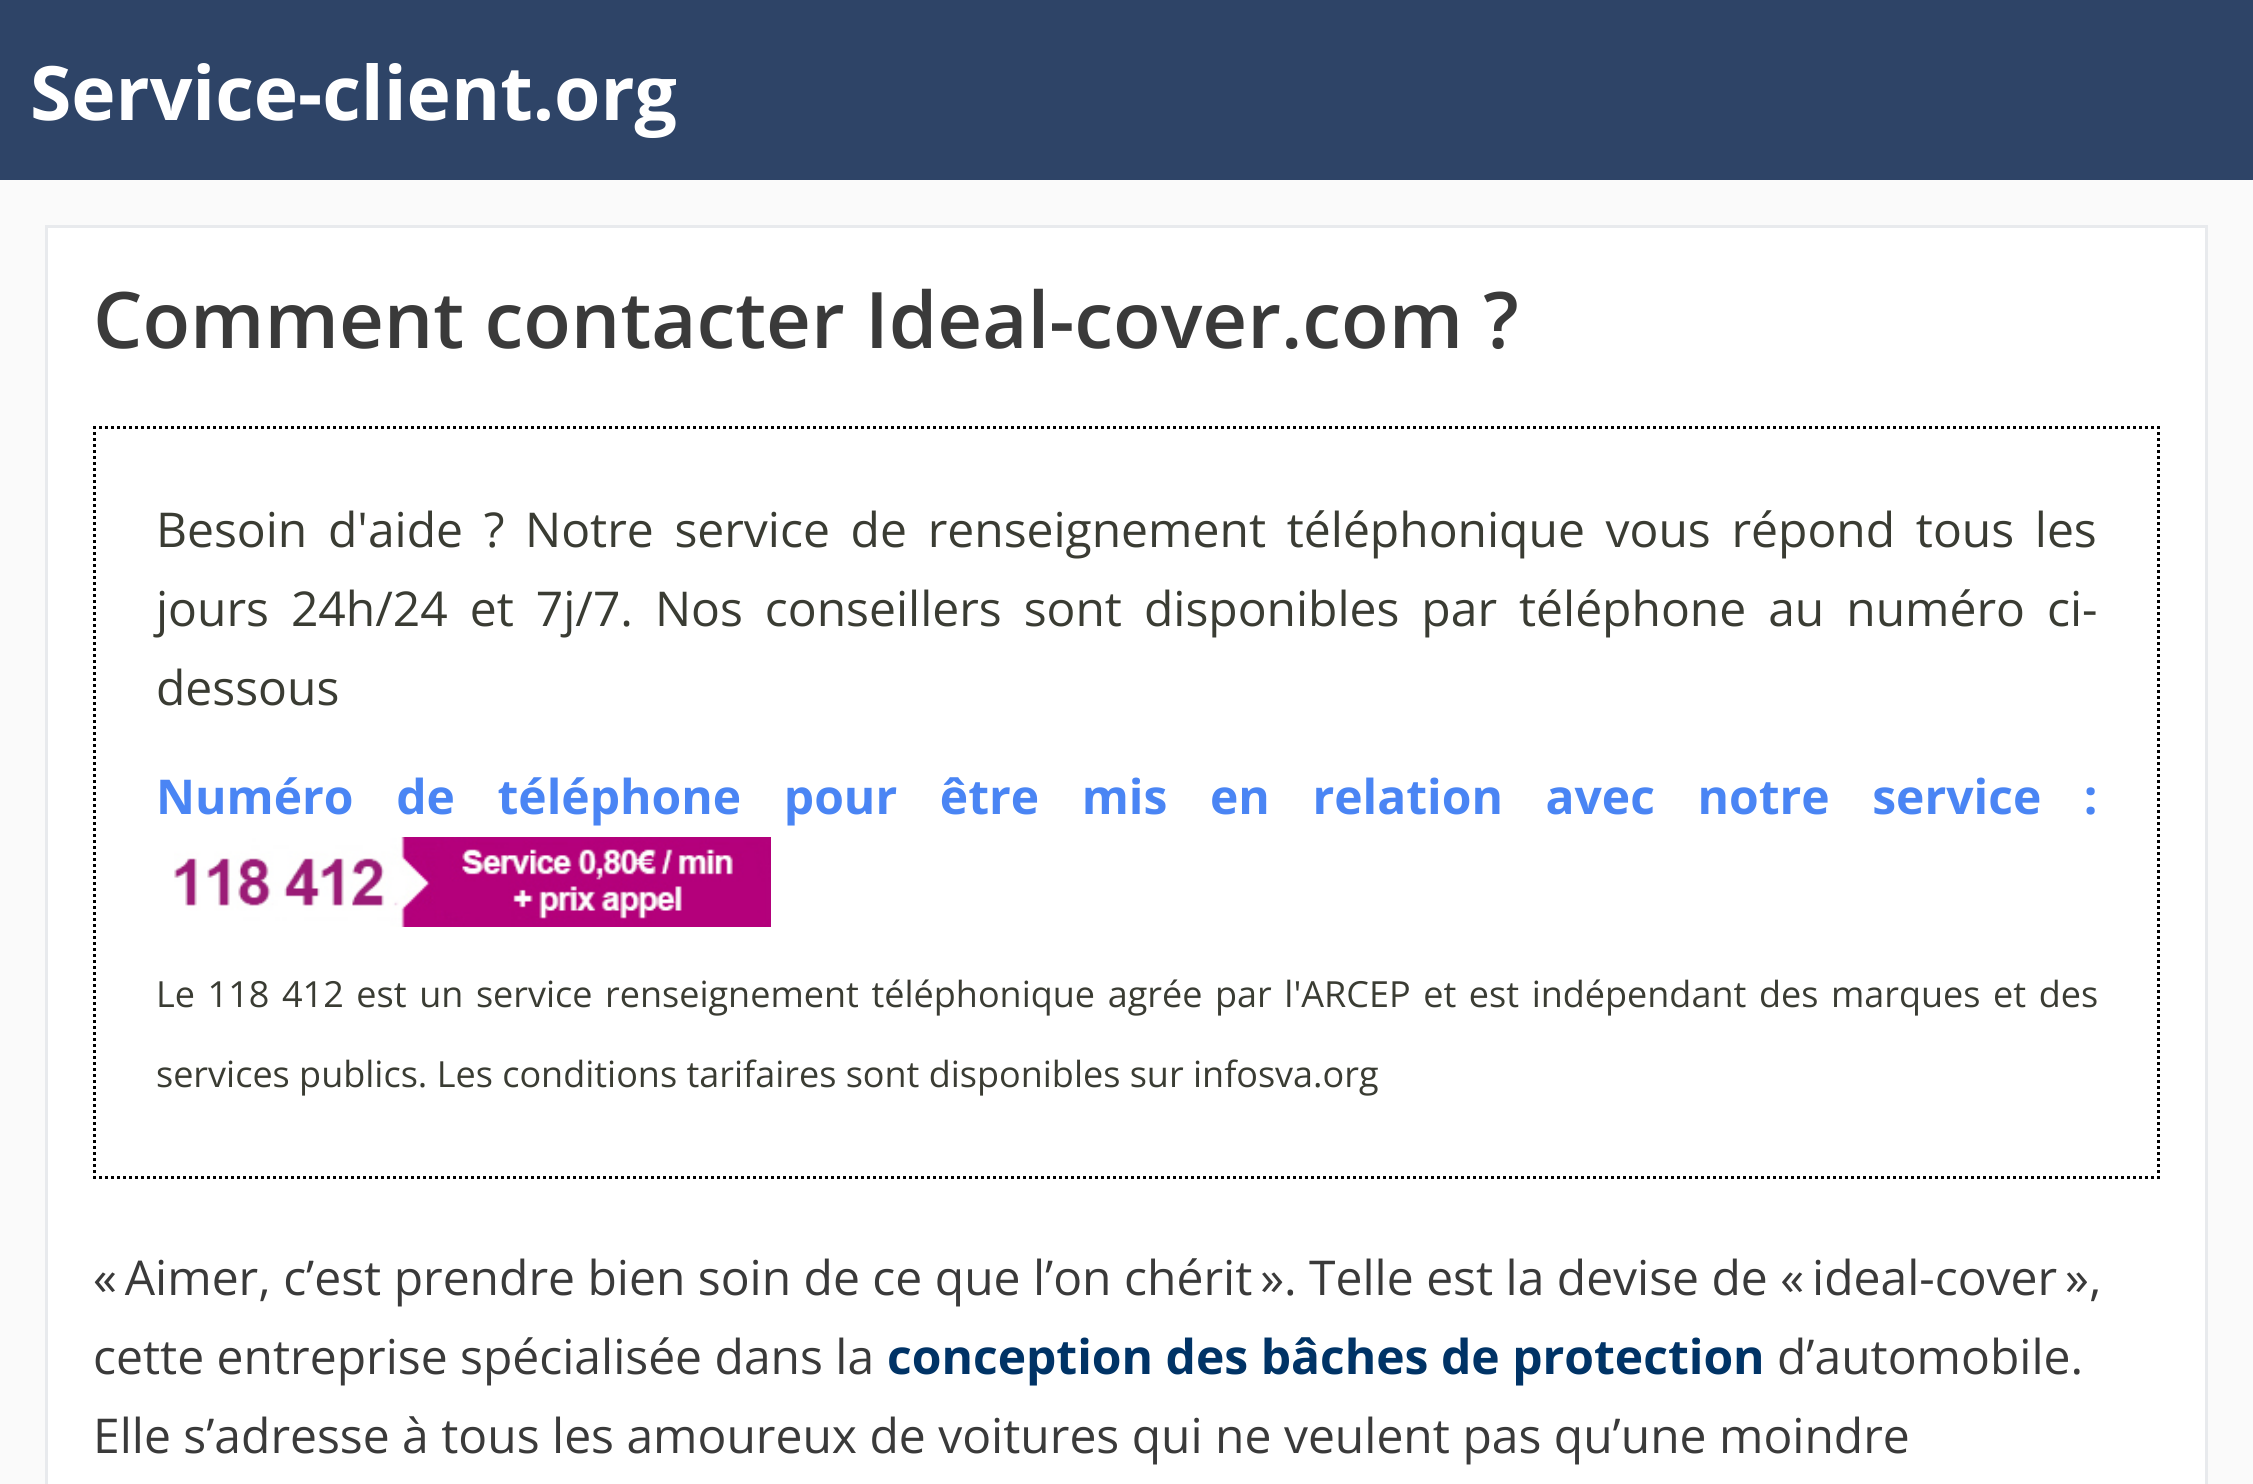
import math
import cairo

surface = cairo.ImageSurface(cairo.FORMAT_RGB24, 2253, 1484)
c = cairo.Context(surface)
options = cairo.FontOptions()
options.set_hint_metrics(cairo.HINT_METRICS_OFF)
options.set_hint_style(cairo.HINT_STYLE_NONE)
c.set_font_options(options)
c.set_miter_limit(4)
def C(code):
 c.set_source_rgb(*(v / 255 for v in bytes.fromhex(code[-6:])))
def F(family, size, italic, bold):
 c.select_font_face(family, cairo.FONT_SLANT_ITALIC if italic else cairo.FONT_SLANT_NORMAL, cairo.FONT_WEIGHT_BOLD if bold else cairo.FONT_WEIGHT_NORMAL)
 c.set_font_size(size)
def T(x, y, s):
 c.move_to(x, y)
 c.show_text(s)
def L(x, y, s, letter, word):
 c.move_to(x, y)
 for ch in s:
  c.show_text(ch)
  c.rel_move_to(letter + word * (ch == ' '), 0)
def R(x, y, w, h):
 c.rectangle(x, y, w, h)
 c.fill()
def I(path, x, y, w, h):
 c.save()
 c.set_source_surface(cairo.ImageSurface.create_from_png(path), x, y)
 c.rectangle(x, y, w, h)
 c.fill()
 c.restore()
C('fafafa')
c.paint()
C('2e4467')
R(0,0,2253,180)
F('Open Sans',75,0,1)
C('ffffff')
T(30,120,'Service-client.org')
c.rectangle(46.5,226.5,2160,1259)
c.fill_preserve()
C('e8eaed')
c.set_line_width(3)
c.stroke()
F('Open Sans SemiBold',78,0,0)
C('3a3a3a')
T(93,348,'Comment contacter Ideal-cover.com ?')
c.new_path()
c.move_to(93,427.5)
c.line_to(2160,427.5)
C('000000')
c.set_dash([3,3])
c.stroke()
c.new_path()
c.move_to(2158.5,426)
c.line_to(2158.5,1179)
c.stroke()
c.new_path()
c.move_to(93,1177.5)
c.line_to(2160,1177.5)
c.stroke()
c.new_path()
c.move_to(94.5,426)
c.line_to(94.5,1179)
c.stroke()
F('Open Sans',48,0,0)
C('3a3c33')
L(156,547,'Besoin d\'aide ?',0,8.25)
L(525,547,'Notre service de renseignement téléphonique vous répond tous les',0,8.25)
L(156,626,'jours 24h/24 et 7j/7. Nos conseillers sont disponibles par téléphone au numéro ci-',0,9.5)
T(156,705,'dessous')
F('Open Sans',48,0,1)
C('4a85f4')
L(156,814,'Numéro de téléphone pour être mis en relation avec notre service :',0,30.1)
I('1.png',174,837,597,90)
F('Open Sans',36,0,0)
C('3a3c33')
L(156,1007,'Le 118 412 est un service renseignement téléphonique agrée par l\'ARCEP et est indépendant des marques et des',0,3.25)
T(156,1087,'services publics. Les conditions tarifaires sont disponibles sur infosva.org')
F('Open Sans',48,0,0)
C('3a3a3a')
T(93,1295,'« Aimer, c’est prendre bien soin de ce que l’on chérit ». Telle est la devise de « ideal-cover »,')
T(93,1374,'cette entreprise spécialisée dans la')
F('Open Sans',48,0,1)
C('003366')
T(887,1374,'conception des bâches de protection')
F('Open Sans',48,0,0)
C('3a3a3a')
T(1777,1374,'d’automobile.')
T(93,1453,'Elle s’adresse à tous les amoureux de voitures qui ne veulent pas qu’une moindre')
surface.write_to_png('o.png')
